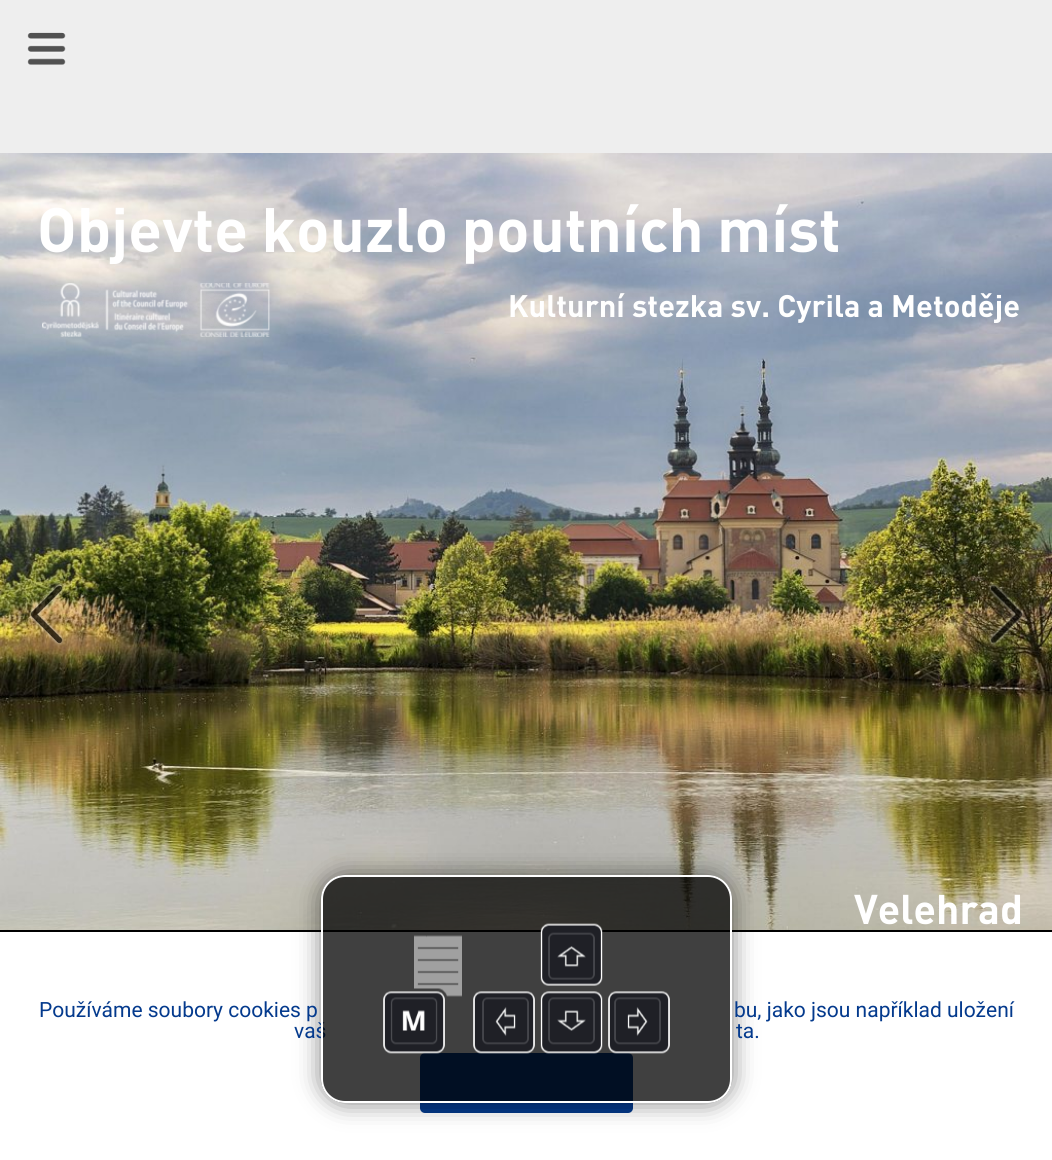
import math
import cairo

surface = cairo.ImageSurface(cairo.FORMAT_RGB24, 1052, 1160)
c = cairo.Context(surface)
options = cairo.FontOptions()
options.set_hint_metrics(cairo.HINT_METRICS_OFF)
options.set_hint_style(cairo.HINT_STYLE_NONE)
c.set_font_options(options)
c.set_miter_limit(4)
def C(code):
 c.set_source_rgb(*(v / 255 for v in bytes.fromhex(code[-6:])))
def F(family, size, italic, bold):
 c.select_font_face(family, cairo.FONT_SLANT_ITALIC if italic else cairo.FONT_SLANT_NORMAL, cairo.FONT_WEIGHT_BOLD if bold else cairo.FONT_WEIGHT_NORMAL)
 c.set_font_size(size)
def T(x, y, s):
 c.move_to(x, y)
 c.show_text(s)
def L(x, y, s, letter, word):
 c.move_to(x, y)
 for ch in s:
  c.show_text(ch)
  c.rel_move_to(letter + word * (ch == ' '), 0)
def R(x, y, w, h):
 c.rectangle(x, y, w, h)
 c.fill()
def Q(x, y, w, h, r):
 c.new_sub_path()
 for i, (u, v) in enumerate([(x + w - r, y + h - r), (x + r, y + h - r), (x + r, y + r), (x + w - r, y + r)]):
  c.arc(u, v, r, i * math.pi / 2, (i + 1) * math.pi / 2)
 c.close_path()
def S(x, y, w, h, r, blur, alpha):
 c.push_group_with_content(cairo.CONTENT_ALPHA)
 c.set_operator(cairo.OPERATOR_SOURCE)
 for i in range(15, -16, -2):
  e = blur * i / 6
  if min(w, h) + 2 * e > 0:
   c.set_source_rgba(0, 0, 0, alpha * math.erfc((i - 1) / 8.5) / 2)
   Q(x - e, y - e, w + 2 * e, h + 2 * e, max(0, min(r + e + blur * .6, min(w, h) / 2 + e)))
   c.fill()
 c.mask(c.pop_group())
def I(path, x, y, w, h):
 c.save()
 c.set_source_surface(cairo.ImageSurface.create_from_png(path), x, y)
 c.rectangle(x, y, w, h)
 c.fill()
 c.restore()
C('eeeeee')
c.paint()
I('1.png',27,32,39,33)
I('3.png',0,153,264,271)
I('4.png',263,153,264,271)
I('5.png',526,153,264,271)
I('6.png',789,153,263,271)
F('DIN',61.75,0,1)
C('ffffff')
L(37,252,'Objevte kouzlo poutních míst',0,-1)
I('2.png',42,283,228,54)
F('DIN',30.8,0,1)
T(508,317,'Kulturní stezka sv. Cyrila a Metoděje')
I('7.png',0,424,264,256)
I('8.png',263,424,265,256)
I('9.png',525,416,273,264)
I('10.png',789,424,263,256)
I('11.png',0,679,272,251)
I('12.png',263,679,272,251)
I('13.png',526,679,272,251)
I('14.png',789,679,263,251)
F('DIN',41,0,1)
T(854,924,'Velehrad')
I('15.png',28,583,37,63)
I('16.png',988,583,37,63)
R(0,932,1052,228)
C('000000')
R(0,930,1052,2)
C('043a8d')
Q(420,1053,213,60,5)
c.fill()
c.save()
c.set_fill_rule(cairo.FILL_RULE_EVEN_ODD)
c.new_path()
c.move_to(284,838)
c.line_to(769,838)
c.line_to(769,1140)
c.line_to(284,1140)
c.close_path()
c.move_to(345,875)
c.line_to(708,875)
c.curve_to(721.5,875,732,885.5,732,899)
c.line_to(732,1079)
c.curve_to(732,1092.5,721.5,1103,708,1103)
c.line_to(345,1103)
c.curve_to(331.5,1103,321,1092.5,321,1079)
c.line_to(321,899)
c.curve_to(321,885.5,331.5,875,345,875)
c.close_path()
c.clip()
C('000000')
S(321,875,411,228,24,12,.5)
c.restore()
F('Roboto',21,0,0)
T(294,1038,'vaš')
c.set_source_rgba(0,0,0,0.75)
Q(321,875,411,228,24)
c.fill()
I('17.png',383,923,287,131)
Q(322,876,409,226,23)
C('ffffff')
c.stroke()
C('043a8d')
T(39,1017,'Používáme soubory cookies p')
T(734,1017,'bu, jako jsou například uložení')
T(736,1038,'ta.')
surface.write_to_png('o.png')
